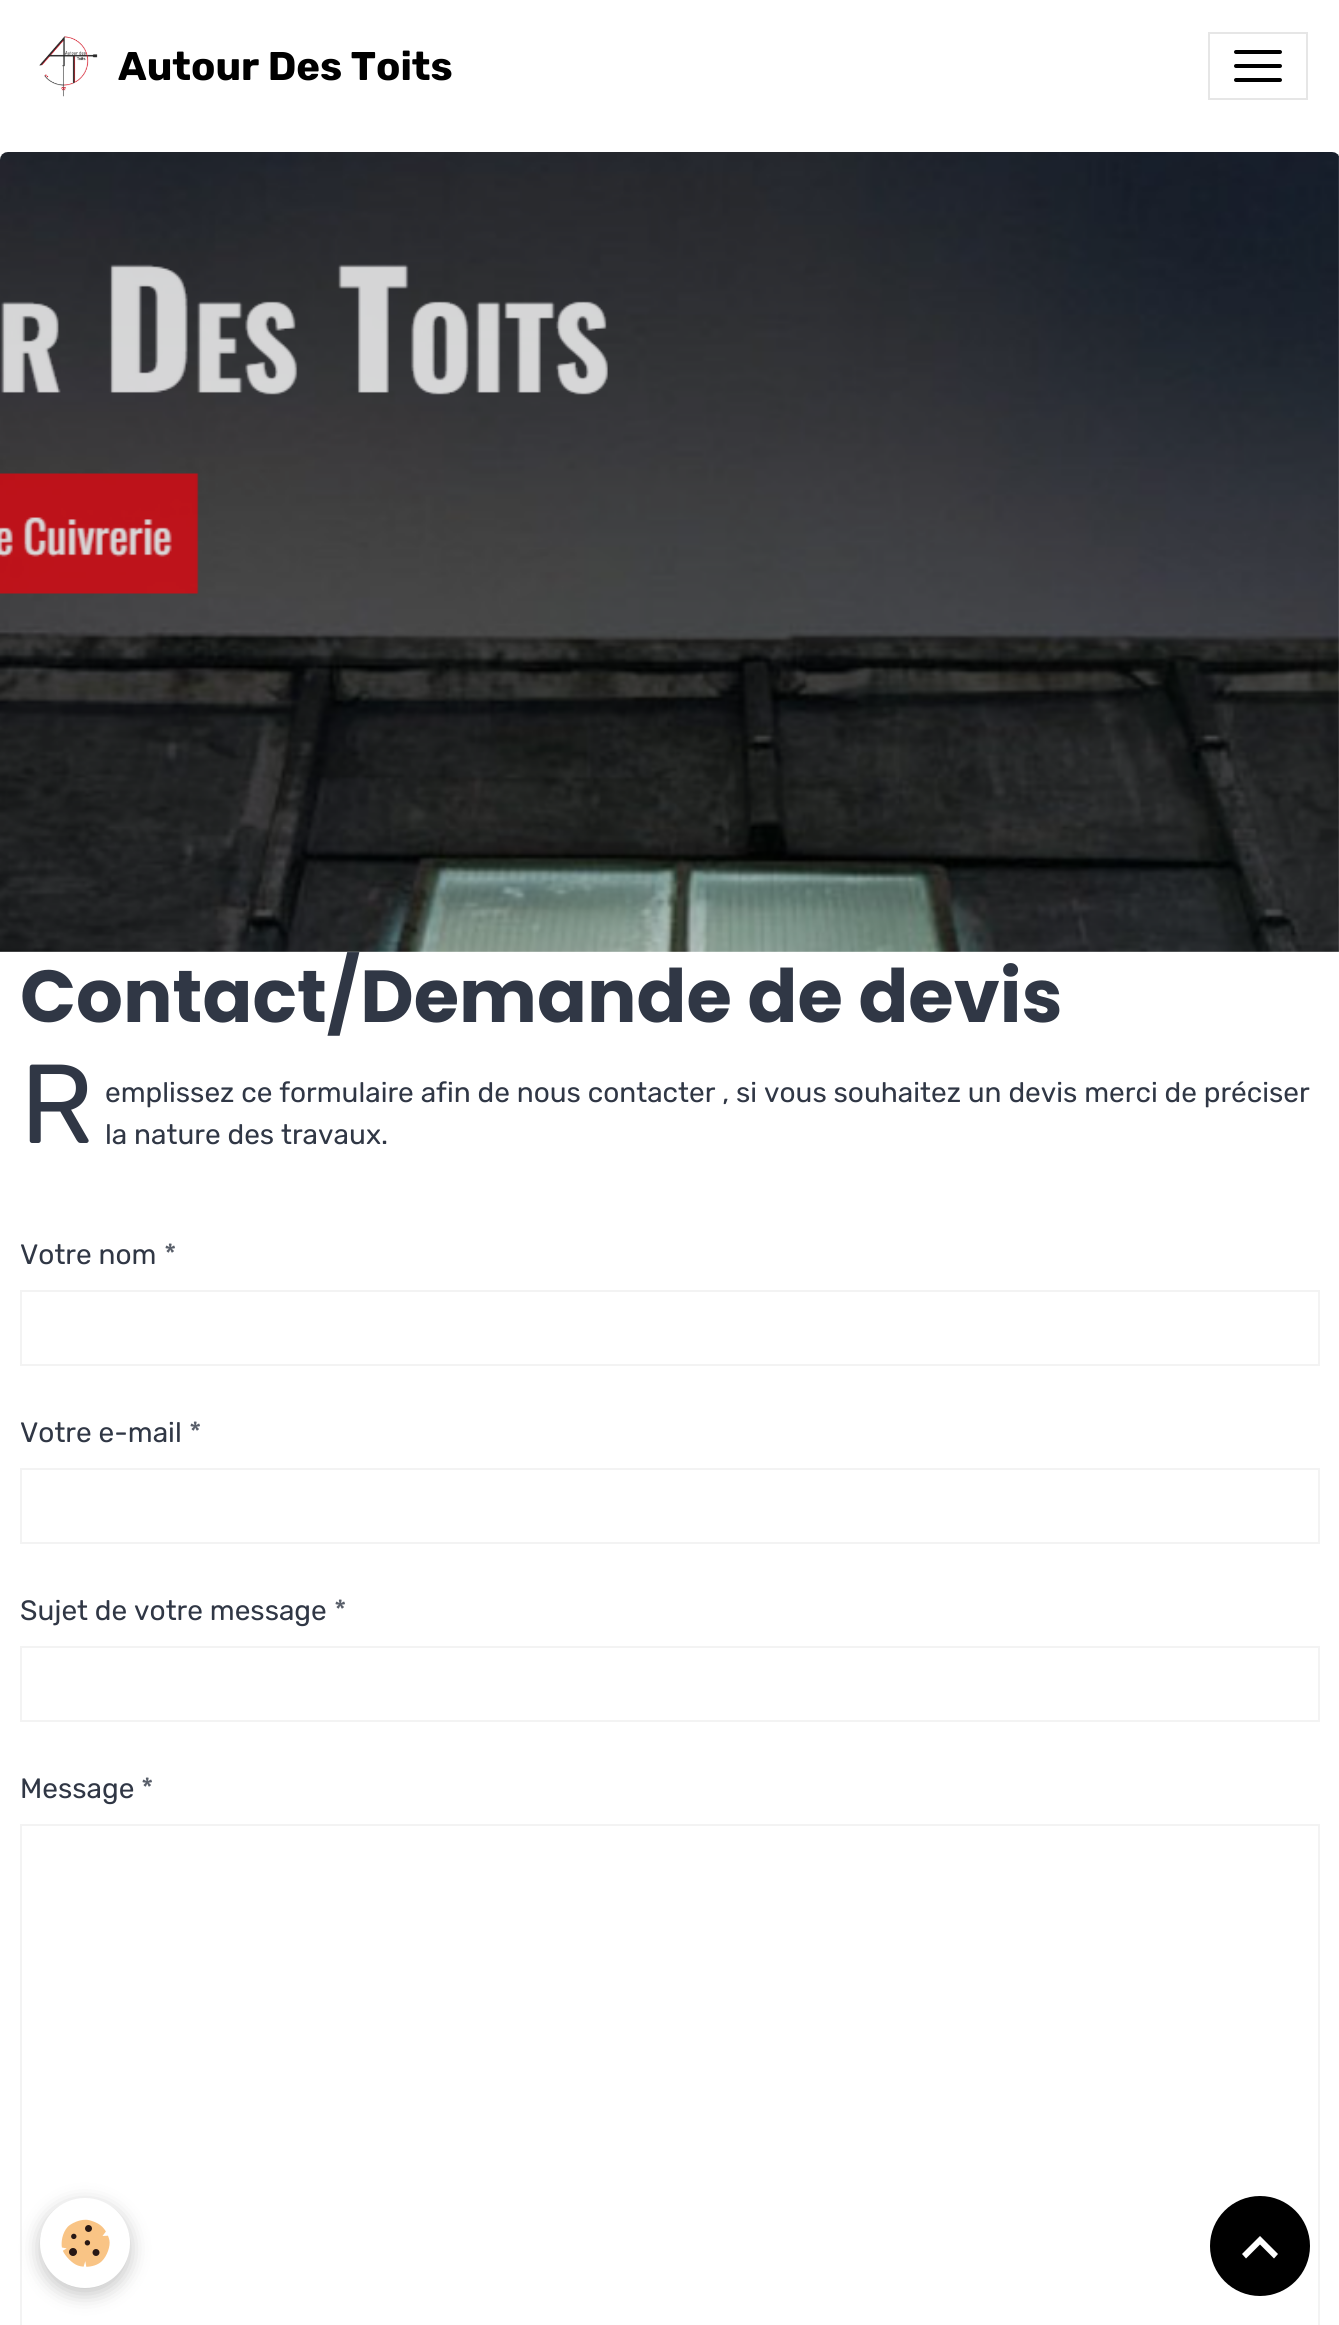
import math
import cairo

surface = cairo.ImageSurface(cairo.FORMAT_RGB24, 1339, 2325)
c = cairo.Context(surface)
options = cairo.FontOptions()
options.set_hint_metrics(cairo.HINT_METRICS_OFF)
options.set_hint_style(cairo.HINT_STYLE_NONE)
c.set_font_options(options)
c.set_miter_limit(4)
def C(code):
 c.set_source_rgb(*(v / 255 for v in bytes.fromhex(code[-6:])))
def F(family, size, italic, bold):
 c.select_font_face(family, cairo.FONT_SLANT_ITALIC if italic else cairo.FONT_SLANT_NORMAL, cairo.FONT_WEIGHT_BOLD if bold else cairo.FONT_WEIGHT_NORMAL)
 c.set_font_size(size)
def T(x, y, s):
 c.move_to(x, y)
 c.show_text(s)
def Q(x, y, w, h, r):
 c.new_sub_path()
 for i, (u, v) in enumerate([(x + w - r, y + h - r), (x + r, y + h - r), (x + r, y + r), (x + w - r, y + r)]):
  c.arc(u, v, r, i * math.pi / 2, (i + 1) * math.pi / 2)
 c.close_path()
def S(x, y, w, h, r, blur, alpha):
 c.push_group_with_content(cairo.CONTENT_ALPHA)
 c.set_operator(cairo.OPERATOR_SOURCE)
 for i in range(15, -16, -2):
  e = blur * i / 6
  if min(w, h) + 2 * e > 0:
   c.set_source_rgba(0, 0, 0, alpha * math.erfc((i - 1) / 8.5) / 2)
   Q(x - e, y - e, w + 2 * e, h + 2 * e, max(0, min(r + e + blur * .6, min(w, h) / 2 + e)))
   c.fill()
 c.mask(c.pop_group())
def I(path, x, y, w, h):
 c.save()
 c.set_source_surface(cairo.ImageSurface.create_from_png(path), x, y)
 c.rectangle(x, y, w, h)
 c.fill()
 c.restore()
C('ffffff')
c.paint()
I('1.png',39,36,59,61)
F('Rubik',40,0,1)
C('000000')
T(118,80,'Autour Des Toits')
c.rectangle(1209,33,98,66)
C('e6e6e6')
c.stroke()
C('000000')
Q(1234,50,48,4,2)
c.fill()
Q(1234,64,48,4,2)
c.fill()
Q(1234,78,48,4,2)
c.fill()
I('2.png',0,152,1339,800)
F('Poppins',73.6,0,1)
C('303745')
T(20,1022,'Contact/Demande de devis')
F('Rubik',112,0,0)
T(20,1143,'R')
F('Rubik',28,0,0)
T(105,1102,'emplissez ce formulaire afin de nous contacter , si vous souhaitez un devis merci de préciser')
T(105,1144,'la nature des travaux.')
T(20,1264,'Votre nom')
C('595f6a')
T(164,1264,'*')
c.rectangle(21,1291,1298,74)
C('f3f3f3')
c.stroke()
C('303745')
T(20,1442,'Votre e-mail')
C('595f6a')
T(189,1442,'*')
c.rectangle(21,1469,1298,74)
C('f3f3f3')
c.stroke()
C('303745')
T(20,1620,'Sujet de votre message')
C('595f6a')
T(334,1620,'*')
c.rectangle(21,1647,1298,74)
C('f3f3f3')
c.stroke()
C('303745')
T(20,1798,'Message')
C('595f6a')
T(141,1798,'*')
c.rectangle(21,1825,1298,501)
C('f3f3f3')
c.stroke()
C('000000')
S(40,2204,90,90,45,10,.24)
C('ffffff')
c.arc(85,2243,45,0,2 * math.pi)
c.fill()
I('3.png',61,2219,49,48)
C('000000')
c.arc(1260,2246,50,0,2 * math.pi)
c.fill()
C('ffffff')
c.new_path()
c.move_to(1260,2236)
c.line_to(1278,2254)
c.line_to(1274,2258.5)
c.line_to(1260,2244.5)
c.line_to(1246,2258.5)
c.line_to(1242,2254)
c.close_path()
c.fill()
surface.write_to_png('o.png')
